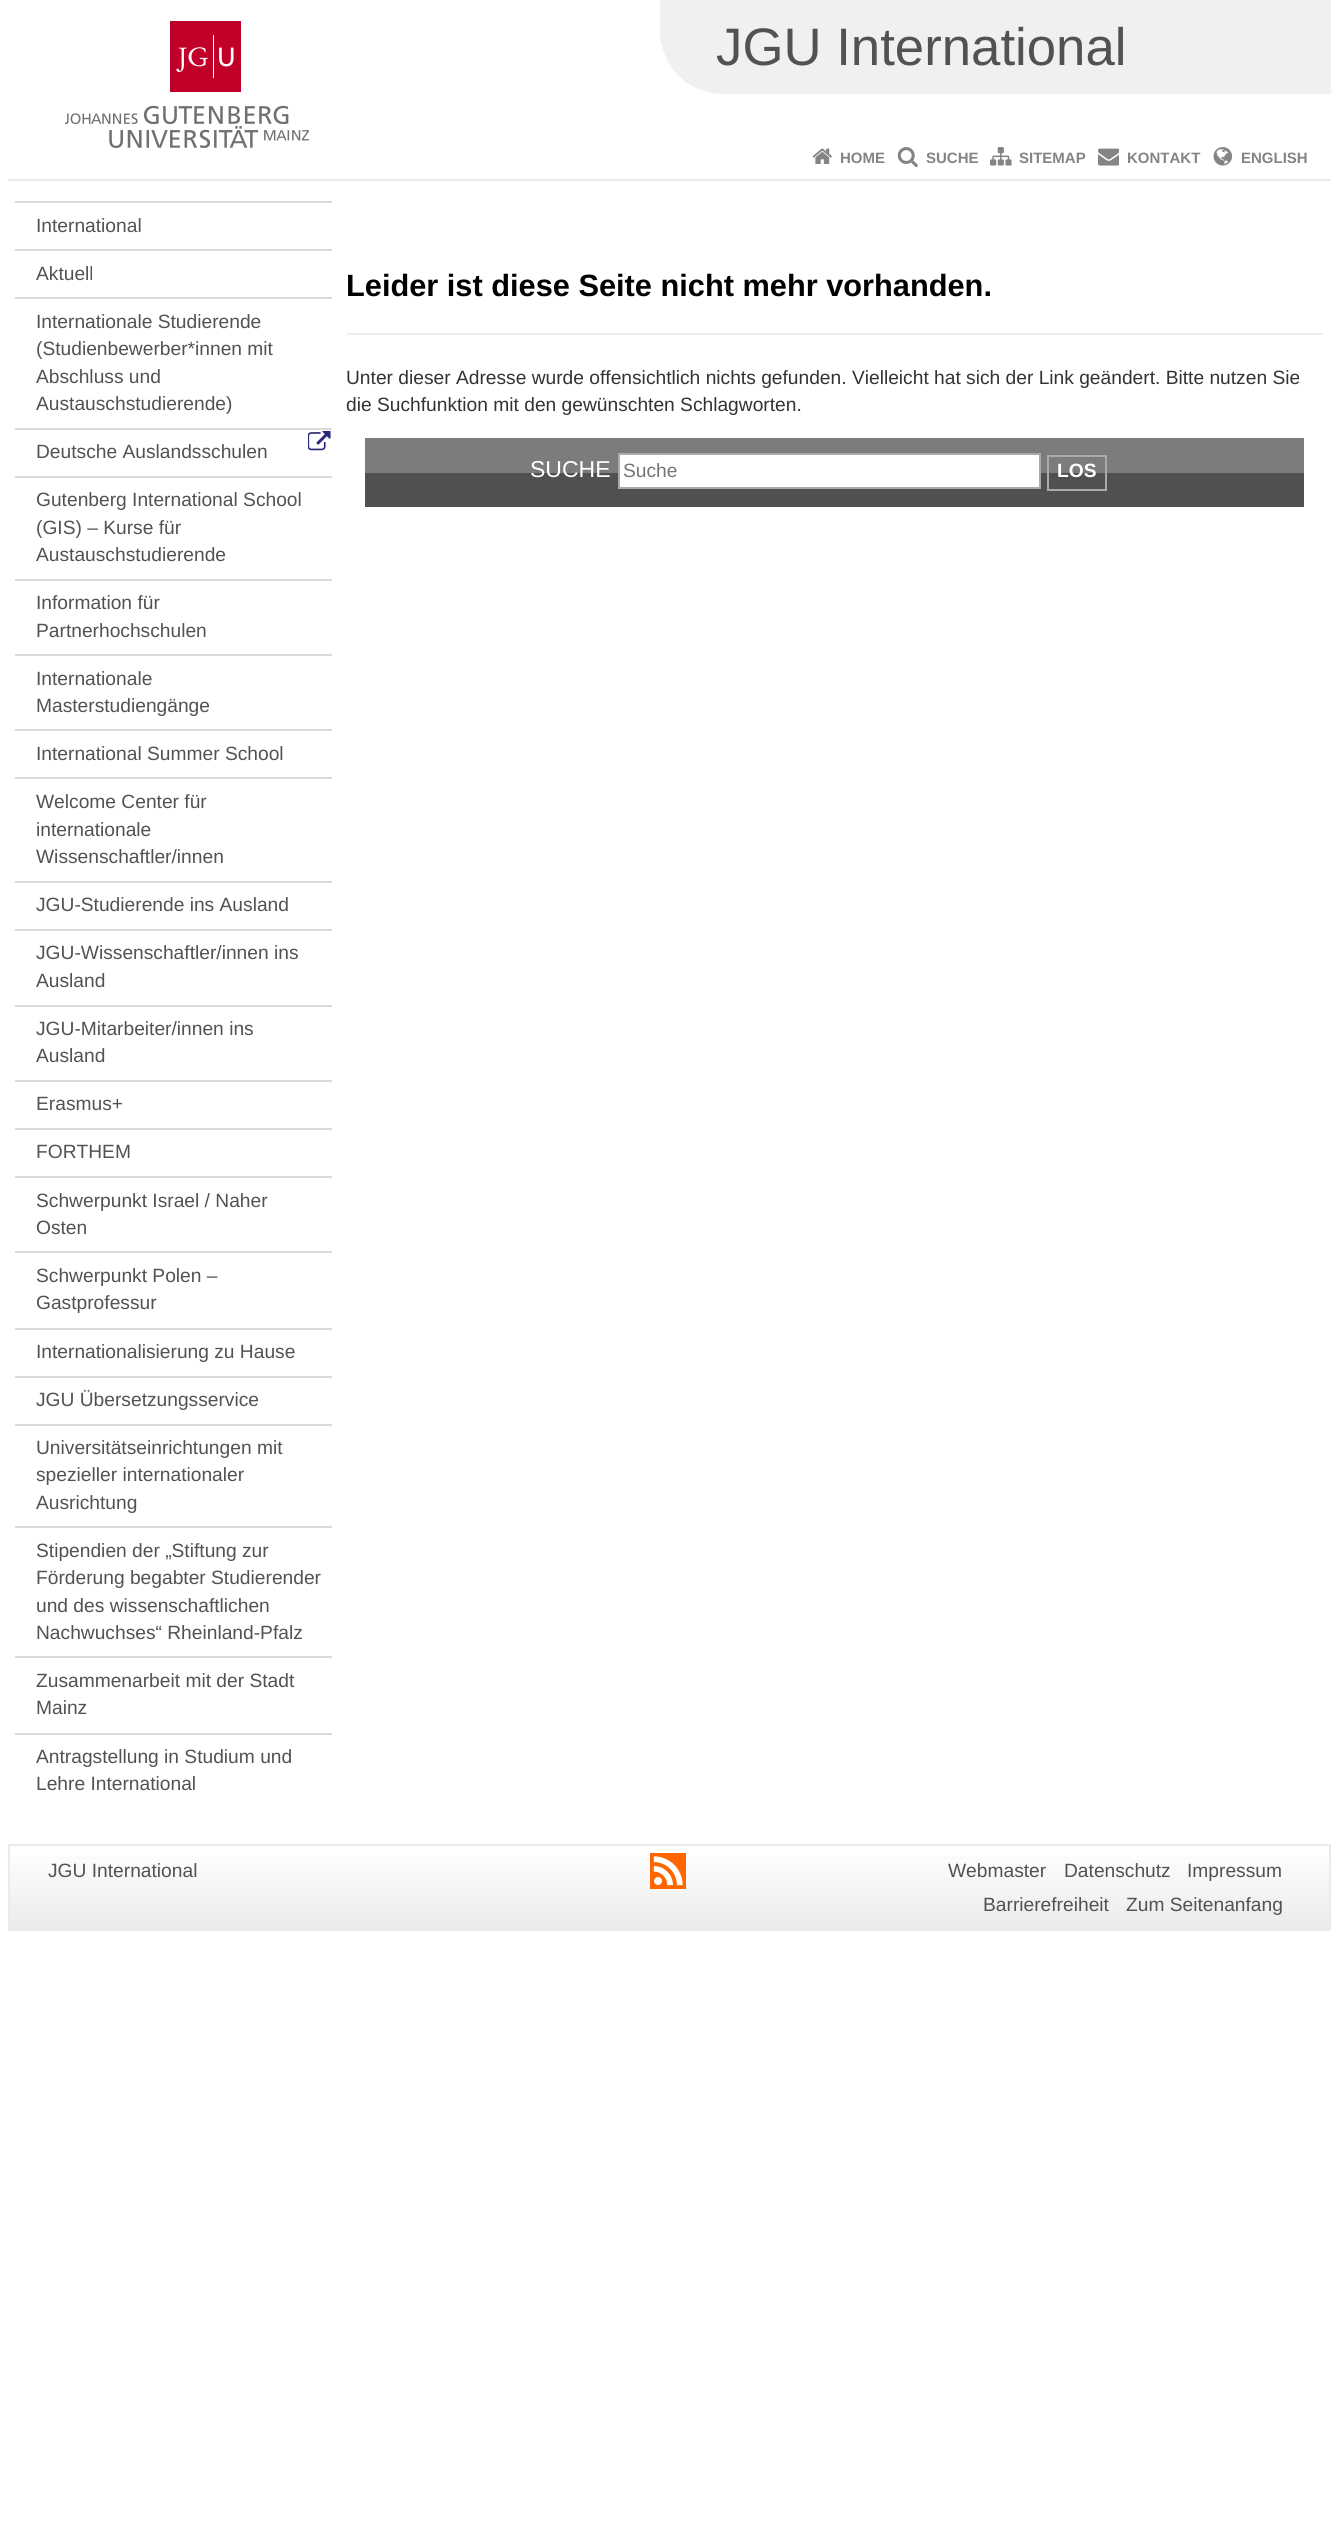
import math
import cairo

surface = cairo.ImageSurface(cairo.FORMAT_RGB24, 1338, 2535)
c = cairo.Context(surface)
options = cairo.FontOptions()
options.set_hint_metrics(cairo.HINT_METRICS_OFF)
options.set_hint_style(cairo.HINT_STYLE_NONE)
c.set_font_options(options)
c.set_miter_limit(4)
def C(code):
 c.set_source_rgb(*(v / 255 for v in bytes.fromhex(code[-6:])))
def F(family, size, italic, bold):
 c.select_font_face(family, cairo.FONT_SLANT_ITALIC if italic else cairo.FONT_SLANT_NORMAL, cairo.FONT_WEIGHT_BOLD if bold else cairo.FONT_WEIGHT_NORMAL)
 c.set_font_size(size)
def T(x, y, s):
 c.move_to(x, y)
 c.show_text(s)
def R(x, y, w, h):
 c.rectangle(x, y, w, h)
 c.fill()
def I(path, x, y, w, h):
 c.save()
 c.set_source_surface(cairo.ImageSurface.create_from_png(path), x, y)
 c.rectangle(x, y, w, h)
 c.fill()
 c.restore()
C('ffffff')
c.paint()
I('1.png',65,21,244,127)
c.save()
c.rectangle(656,0,675,135)
c.clip()
C('f0f0f0')
c.new_path()
c.move_to(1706,94)
c.line_to(721,94)
c.curve_to(671,91,660,46,660,34)
c.line_to(660,0)
c.line_to(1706,0)
c.close_path()
c.fill()
c.restore()
F('Liberation Sans',52.75,0,0)
C('525252')
T(716,65,'JGU International')
I('2.png',812,148,20,16)
F('Liberation Sans',15,0,1)
C('848484')
T(840,163,'HOME')
I('3.png',897,147,21,21)
T(926,163,'SUCHE')
I('4.png',990,147,22,19)
T(1019,163,'SITEMAP')
I('5.png',1098,148,21,18)
T(1127,163,'KONTAKT')
I('6.png',1213,147,19,19)
T(1241,163,'ENGLISH')
C('ebebeb')
R(8,179,1323,2)
C('dadada')
R(15,201,317,2)
F('Liberation Sans',19.2,0,0)
C('525252')
T(36,232,'International')
C('dadada')
R(15,249,317,2)
C('525252')
T(36,280,'Aktuell')
C('dadada')
R(15,297,317,2)
C('525252')
T(36,328,'Internationale Studierende')
T(36,355,'(Studienbewerber*innen mit')
T(36,383,'Abschluss und')
T(36,410,'Austauschstudierende)')
C('dadada')
R(15,428,317,2)
I('7.png',308,431,23,20)
C('525252')
T(36,458,'Deutsche Auslandsschulen')
C('dadada')
R(15,476,317,2)
C('525252')
T(36,506,'Gutenberg International School')
T(36,534,'(GIS) – Kurse für')
T(36,561,'Austauschstudierende')
C('dadada')
R(15,579,317,2)
C('525252')
T(36,609,'Information für')
T(36,637,'Partnerhochschulen')
C('dadada')
R(15,654,317,2)
C('525252')
T(36,685,'Internationale')
T(36,712,'Masterstudiengänge')
C('dadada')
R(15,729,317,2)
C('525252')
T(36,760,'International Summer School')
C('dadada')
R(15,777,317,2)
C('525252')
T(36,808,'Welcome Center für')
T(36,836,'internationale')
T(36,863,'Wissenschaftler/innen')
C('dadada')
R(15,881,317,2)
C('525252')
T(36,911,'JGU-Studierende ins Ausland')
C('dadada')
R(15,929,317,2)
C('525252')
T(36,959,'JGU-Wissenschaftler/innen ins')
T(36,987,'Ausland')
C('dadada')
R(15,1005,317,2)
C('525252')
T(36,1035,'JGU-Mitarbeiter/innen ins')
T(36,1062,'Ausland')
C('dadada')
R(15,1080,317,2)
C('525252')
T(36,1110,'Erasmus+')
C('dadada')
R(15,1128,317,2)
C('525252')
T(36,1158,'FORTHEM')
C('dadada')
R(15,1176,317,2)
C('525252')
T(36,1207,'Schwerpunkt Israel / Naher')
T(36,1234,'Osten')
C('dadada')
R(15,1251,317,2)
C('525252')
T(36,1282,'Schwerpunkt Polen –')
T(36,1309,'Gastprofessur')
C('dadada')
R(15,1328,317,2)
C('525252')
T(36,1358,'Internationalisierung zu Hause')
C('dadada')
R(15,1376,317,2)
C('525252')
T(36,1406,'JGU Übersetzungsservice')
C('dadada')
R(15,1424,317,2)
C('525252')
T(36,1454,'Universitätseinrichtungen mit')
T(36,1481,'spezieller internationaler')
T(36,1509,'Ausrichtung')
C('dadada')
R(15,1526,317,2)
C('525252')
T(36,1557,'Stipendien der „Stiftung zur')
T(36,1584,'Förderung begabter Studierender')
T(36,1612,'und des wissenschaftlichen')
T(36,1639,'Nachwuchses“ Rheinland-Pfalz')
C('dadada')
R(15,1656,317,2)
C('525252')
T(36,1687,'Zusammenarbeit mit der Stadt')
T(36,1714,'Mainz')
C('dadada')
R(15,1733,317,2)
C('525252')
T(36,1763,'Antragstellung in Studium und')
T(36,1790,'Lehre International')
C('eeeeee')
R(347,333,976,2)
F('Liberation Sans',30.75,0,1)
C('000000')
T(346,296,'Leider ist diese Seite nicht mehr vorhanden.')
F('Liberation Sans',19.2,0,0)
C('333333')
T(346,384,'Unter dieser Adresse wurde offensichtlich nichts gefunden. Vielleicht hat sich der Link geändert. Bitte nutzen Sie')
T(346,411,'die Suchfunktion mit den gewünschten Schlagworten.')
C('7c7c7c')
R(365,438,939,35)
C('505050')
R(365,473,939,34)
F('Liberation Sans',23,0,0)
C('ffffff')
T(530,477,'SUCHE')
c.rectangle(619,454,421,34)
c.fill_preserve()
C('aaaaaa')
c.stroke()
F('Liberation Sans',19.2,0,0)
C('757575')
T(623,477,'Suche')
c.rectangle(1048,456,58,34)
C('aaaaaa')
c.stroke()
F('Liberation Sans',19.2,0,1)
C('ffffff')
T(1057,477,'LOS')
gradient = cairo.LinearGradient(669,1929,669,1845)
gradient.add_color_stop_rgba(0,0.922,0.922,0.922,1)
gradient.add_color_stop_rgba(1,1,1,1,1)
c.set_source(gradient)
R(10,1856,1319,73)
c.rectangle(9,1845,1321,85)
C('ebebeb')
c.stroke()
F('Liberation Sans',19.2,0,0)
C('525252')
T(48,1877,'JGU International')
I('8.png',650,1853,36,36)
T(948,1877,'Webmaster')
T(1064,1877,'Datenschutz')
T(1187,1877,'Impressum')
T(983,1911,'Barrierefreiheit')
T(1126,1911,'Zum Seitenanfang')
surface.write_to_png('o.png')
